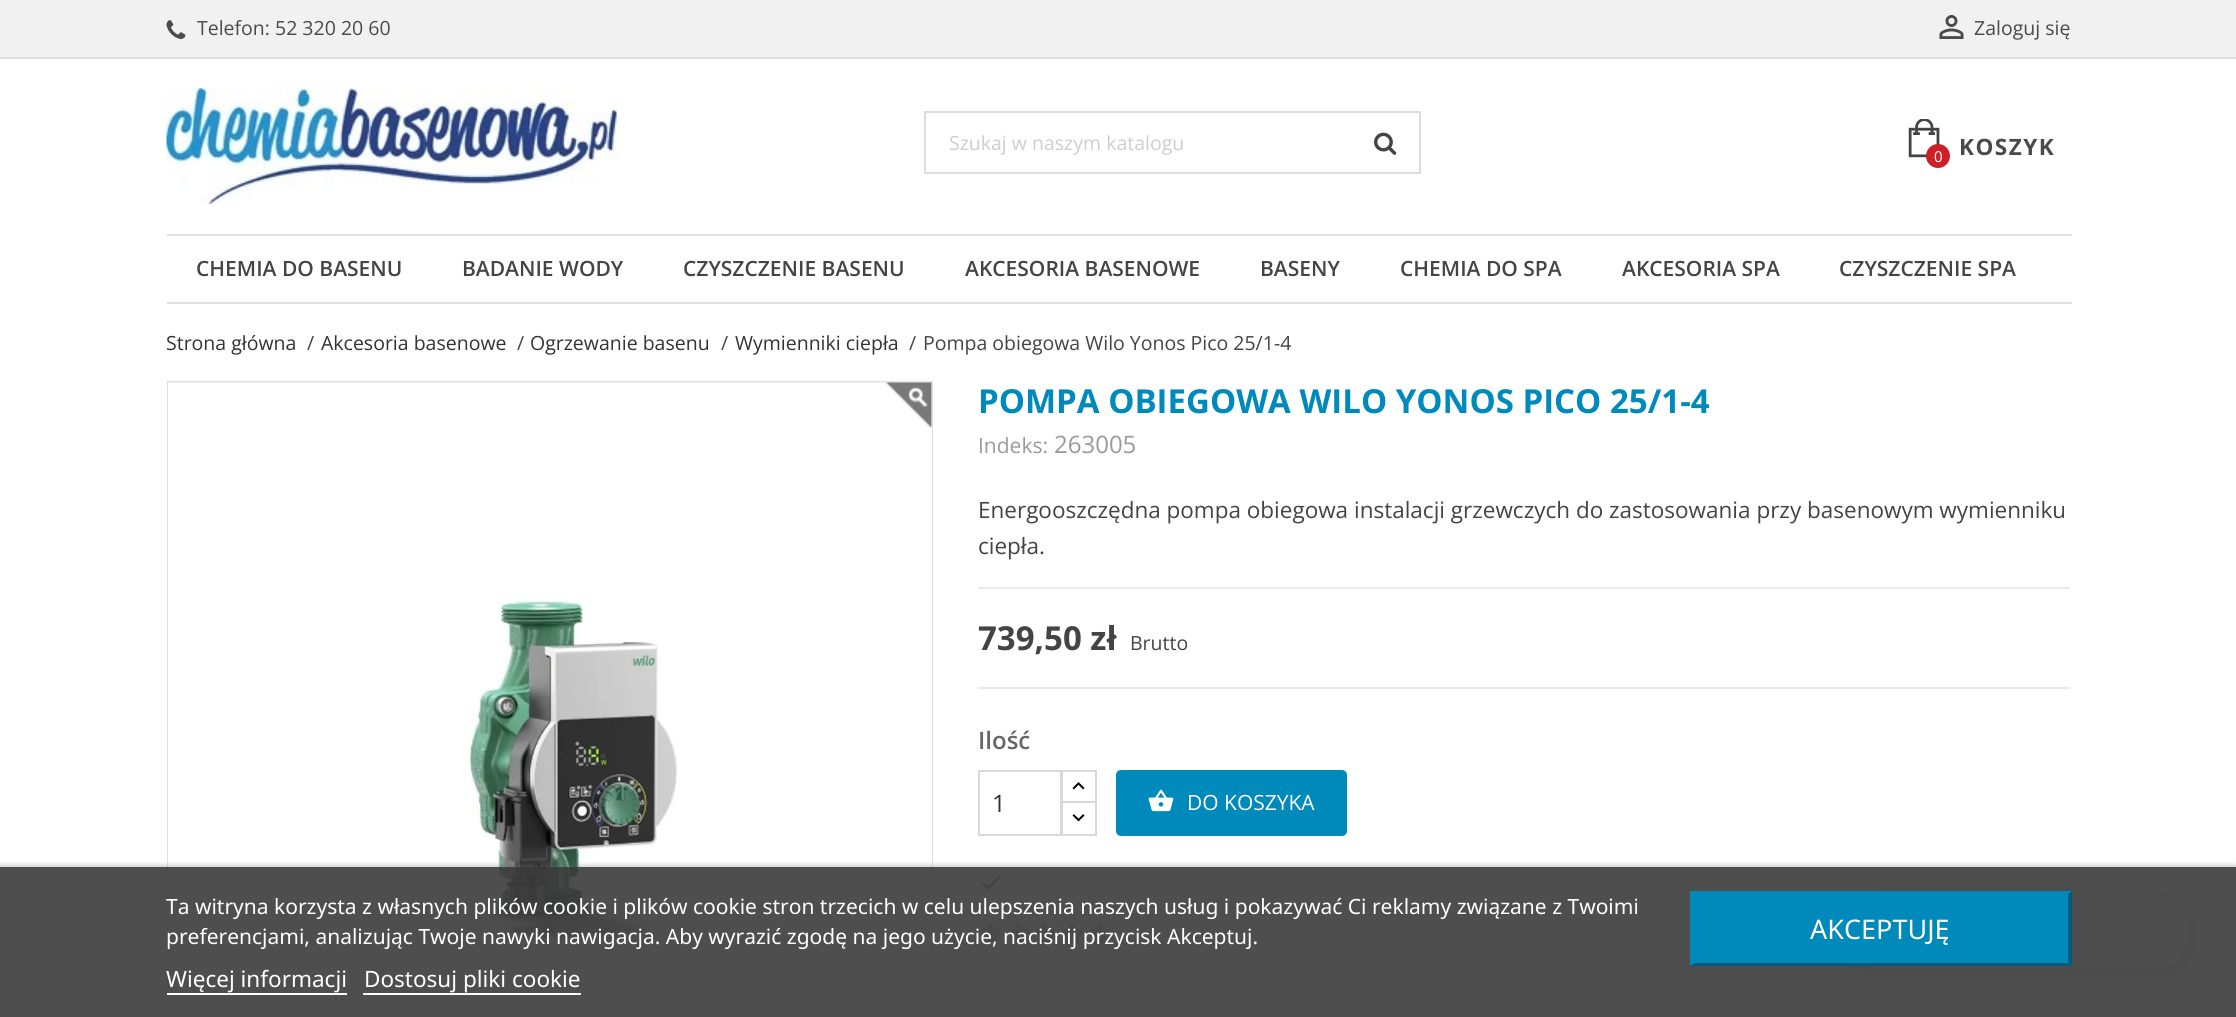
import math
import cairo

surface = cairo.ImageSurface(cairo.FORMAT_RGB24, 2236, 1017)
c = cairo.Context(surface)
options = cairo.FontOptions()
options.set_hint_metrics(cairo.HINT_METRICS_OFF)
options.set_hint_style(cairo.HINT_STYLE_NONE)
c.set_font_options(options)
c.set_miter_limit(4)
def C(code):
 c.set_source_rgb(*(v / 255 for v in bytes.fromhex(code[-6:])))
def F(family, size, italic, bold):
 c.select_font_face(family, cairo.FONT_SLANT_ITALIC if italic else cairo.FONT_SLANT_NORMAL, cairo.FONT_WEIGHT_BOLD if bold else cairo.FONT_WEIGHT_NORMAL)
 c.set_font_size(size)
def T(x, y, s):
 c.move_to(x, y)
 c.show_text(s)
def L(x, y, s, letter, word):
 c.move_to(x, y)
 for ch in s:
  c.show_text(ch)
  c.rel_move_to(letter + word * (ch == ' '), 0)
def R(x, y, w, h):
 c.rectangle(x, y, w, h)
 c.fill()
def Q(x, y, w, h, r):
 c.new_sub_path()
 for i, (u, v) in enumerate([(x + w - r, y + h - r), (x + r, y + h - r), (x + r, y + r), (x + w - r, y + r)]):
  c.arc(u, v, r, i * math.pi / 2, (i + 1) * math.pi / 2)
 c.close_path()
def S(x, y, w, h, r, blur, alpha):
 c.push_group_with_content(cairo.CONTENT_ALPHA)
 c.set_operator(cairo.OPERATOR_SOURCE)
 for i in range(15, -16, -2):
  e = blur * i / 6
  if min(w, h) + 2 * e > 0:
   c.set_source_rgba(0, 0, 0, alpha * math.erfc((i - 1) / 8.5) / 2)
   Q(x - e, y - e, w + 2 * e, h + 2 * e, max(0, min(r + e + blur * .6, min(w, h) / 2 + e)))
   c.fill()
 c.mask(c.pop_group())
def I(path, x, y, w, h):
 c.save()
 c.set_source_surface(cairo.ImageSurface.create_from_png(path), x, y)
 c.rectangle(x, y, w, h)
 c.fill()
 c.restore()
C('ffffff')
c.paint()
C('f1f1f1')
R(0,0,2236,57)
C('e0e0e0')
R(0,57,2236,2)
I('1.png',166,20,20,19)
F('Open Sans',19.5,0,0)
C('4a4a4a')
T(197,35,'Telefon: 52 320 20 60')
I('2.png',1939,15,25,24)
T(1974,35,'Zaloguj się')
I('3.png',166,88,451,116)
c.rectangle(925,112,495,61)
C('dddddd')
c.stroke()
C('cecece')
T(949,150,'Szukaj w naszym katalogu')
I('4.png',1374,132,23,23)
I('5.png',1908,119,32,39)
F('Open Sans',22.5,0,1)
C('4a4a4a')
L(1959,155,'KOSZYK',1.5,0)
C('cd2026')
c.new_path()
c.arc(1938,156,12,0,2 * math.pi)
c.fill()
F('Open Sans',15,0,0)
C('ffffff')
T(1934,162,'0')
C('e0e0e0')
R(167,234,1905,2)
R(167,302,1905,2)
F('Open Sans SemiBold',21,0,0)
C('444444')
T(196,276,'CHEMIA DO BASENU')
T(462,276,'BADANIE WODY')
T(683,276,'CZYSZCZENIE BASENU')
T(965,276,'AKCESORIA BASENOWE')
T(1260,276,'BASENY')
T(1400,276,'CHEMIA DO SPA')
T(1622,276,'AKCESORIA SPA')
T(1839,276,'CZYSZCZENIE SPA')
c.rectangle(168,382,764,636)
C('e0e0e0')
c.stroke()
C('ffffff')
R(168,383,764,634)
I('6.png',168,382,764,558)
C('4cbb6c')
c.new_path()
c.move_to(988,886.5)
c.line_to(1000,875)
c.line_to(1001.5,876.5)
c.line_to(988,890)
c.line_to(982,883.5)
c.line_to(983.5,882)
c.close_path()
c.fill()
I('11.png',980,923,130,21)
C('000000')
S(1841,896,351,79,39.5,6,.15)
C('ffffff')
Q(1842,894,349,77,38.5)
c.fill_preserve()
C('e0e0e0')
c.stroke()
c.save()
c.rectangle(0,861,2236,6)
c.clip()
C('707070')
S(0,869,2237,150,0,4,1)
c.restore()
c.set_source_rgba(0.231,0.231,0.231,0.9)
R(0,867,2236,150)
F('Noto Sans',21,0,0)
C('ffffff')
T(166,914,'Ta witryna korzysta z własnych plików cookie i plików cookie stron trzecich w celu ulepszenia naszych usług i pokazywać Ci reklamy związane z Twoimi')
T(166,944,'preferencjami, analizując Twoje nawyki nawigacja. Aby wyrazić zgodę na jego użycie, naciśnij przycisk Akceptuj.')
F('Noto Sans',22.5,0,0)
T(166,987,'Więcej informacji')
R(167,993,180,2)
T(364,987,'Dostosuj pliki cookie')
R(363,993,218,2)
C('0089bb')
R(1691,891,381,75)
c.new_path()
c.move_to(1690,891)
c.line_to(2072,891)
c.line_to(2068,894)
c.line_to(1694,894)
c.close_path()
c.fill()
C('005b7d')
c.new_path()
c.move_to(2072,891)
c.line_to(2072,966)
c.line_to(2068,963)
c.line_to(2068,894)
c.close_path()
c.fill()
c.new_path()
c.move_to(2072,966)
c.line_to(1690,966)
c.line_to(1694,963)
c.line_to(2068,963)
c.close_path()
c.fill()
C('0089bb')
c.new_path()
c.move_to(1690,966)
c.line_to(1690,891)
c.line_to(1694,894)
c.line_to(1694,963)
c.close_path()
c.fill()
F('Noto Sans',27,0,0)
C('ffffff')
T(1810,939,'AKCEPTUJĘ')
F('Open Sans',19.5,0,0)
C('333333')
T(166,350,'Strona główna')
C('444444')
T(307,350,'/')
C('333333')
T(321,350,'Akcesoria basenowe')
C('444444')
T(517,350,'/')
C('333333')
T(530,350,'Ogrzewanie basenu')
C('444444')
T(721,350,'/')
C('333333')
T(735,350,'Wymienniki ciepła')
C('444444')
T(909,350,'/')
T(923,350,'Pompa obiegowa Wilo Yonos Pico 25/1-4')
I('7.png',886,382,46,46)
F('Open Sans',33,0,1)
C('0089bb')
T(978,413,'POMPA OBIEGOWA WILO YONOS PICO 25/1-4')
F('Open Sans',21,0,0)
C('9a9a9a')
T(978,453,'Indeks:')
F('Open Sans',24,0,0)
T(1054,453,'263005')
F('Open Sans',22.5,0,0)
C('444444')
T(978,518,'Energooszczędna pompa obiegowa instalacji grzewczych do zastosowania przy basenowym wymienniku')
T(978,554,'ciepła.')
C('eaeaea')
R(978,587,1092,2)
R(978,687,1092,2)
F('Open Sans',33,0,1)
C('444444')
T(978,650,'739,50 zł')
F('Open Sans',19.5,0,0)
T(1130,650,'Brutto')
F('Open Sans SemiBold',24,0,0)
C('666666')
T(978,749,'Ilość')
c.rectangle(1062,771,34,32)
C('d9d9d9')
c.stroke()
C('ffffff')
R(1063,803,32,1)
c.rectangle(1062,802,34,33)
C('d9d9d9')
c.stroke()
c.rectangle(979,771,82,64)
c.stroke()
F('Open Sans',24,0,0)
C('333333')
T(992,812,'1')
I('8.png',1072,782,13,8)
I('9.png',1072,814,13,8)
C('0089bb')
Q(1116,770,231,66,5)
c.fill()
I('10.png',1148,789,26,23)
F('Open Sans',21,0,0)
C('ffffff')
T(1187,810,'DO KOSZYKA')
surface.write_to_png('o.png')
